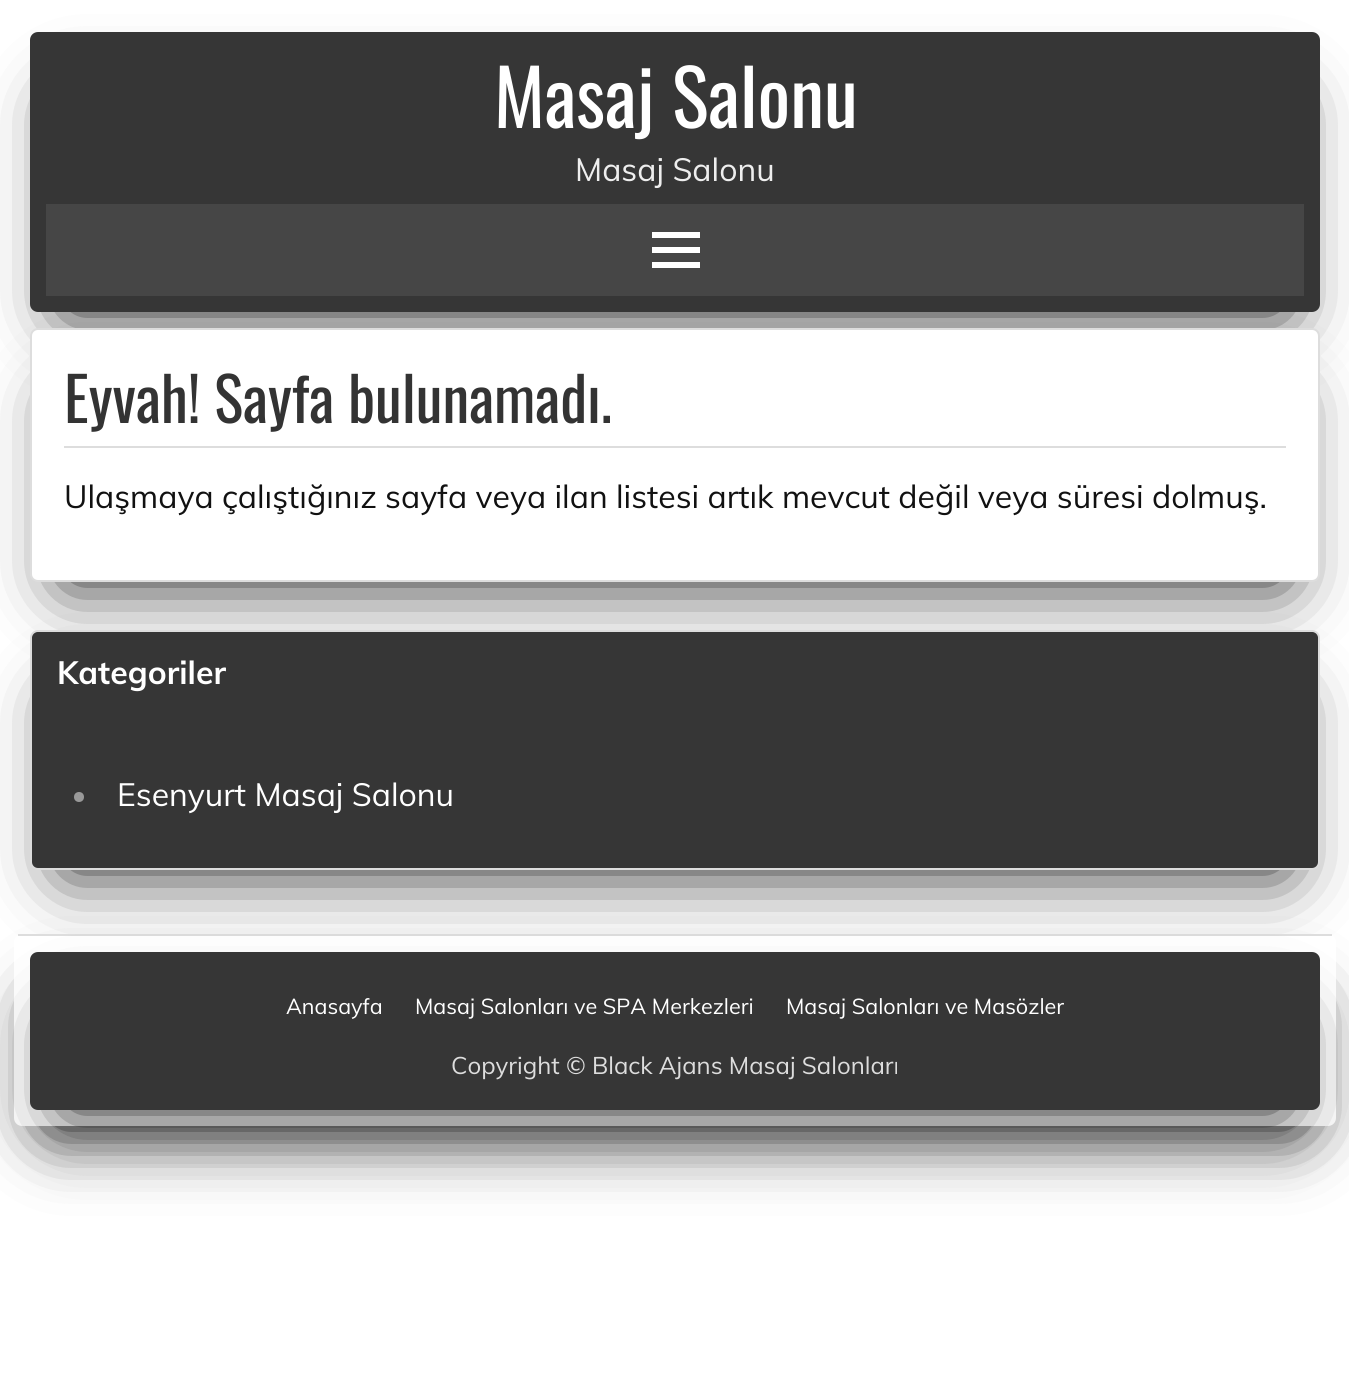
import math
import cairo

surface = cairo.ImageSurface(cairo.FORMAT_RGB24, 1349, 1387)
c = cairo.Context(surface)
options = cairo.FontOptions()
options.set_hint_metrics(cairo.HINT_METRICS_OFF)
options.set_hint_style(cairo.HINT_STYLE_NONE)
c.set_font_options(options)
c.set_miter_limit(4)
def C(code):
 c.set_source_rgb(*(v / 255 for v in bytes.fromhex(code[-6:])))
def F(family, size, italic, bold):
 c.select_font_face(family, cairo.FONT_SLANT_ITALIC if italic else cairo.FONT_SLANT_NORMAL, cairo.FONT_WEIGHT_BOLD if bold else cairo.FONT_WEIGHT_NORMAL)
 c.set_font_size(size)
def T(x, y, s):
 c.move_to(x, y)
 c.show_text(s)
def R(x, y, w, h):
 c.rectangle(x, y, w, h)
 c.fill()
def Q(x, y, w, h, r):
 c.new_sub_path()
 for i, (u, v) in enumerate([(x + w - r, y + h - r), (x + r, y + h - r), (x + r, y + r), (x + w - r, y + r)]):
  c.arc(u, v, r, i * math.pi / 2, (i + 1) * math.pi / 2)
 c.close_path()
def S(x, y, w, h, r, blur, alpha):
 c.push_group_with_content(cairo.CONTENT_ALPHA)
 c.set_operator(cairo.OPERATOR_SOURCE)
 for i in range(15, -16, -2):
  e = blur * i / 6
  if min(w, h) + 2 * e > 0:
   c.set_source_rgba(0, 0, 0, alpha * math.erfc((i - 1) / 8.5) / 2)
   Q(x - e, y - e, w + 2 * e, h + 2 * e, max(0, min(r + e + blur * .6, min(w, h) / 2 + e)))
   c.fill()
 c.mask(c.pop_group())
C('ffffff')
c.paint()
C('000000')
S(66,104,1218,208,0,36,.94)
C('363636')
Q(30,32,1290,280,8)
c.fill()
F('Oswald',77,0,0)
C('ffffff')
T(494,128,'Masaj Salonu')
F('Muli',32,0,0)
C('eeeeee')
T(575,181,'Masaj Salonu')
C('464646')
R(46,204,1258,92)
C('ffffff')
c.new_path()
c.move_to(652,268)
c.line_to(652,262)
c.line_to(700,262)
c.line_to(700,268)
c.close_path()
c.move_to(652,232)
c.line_to(700,232)
c.line_to(700,238)
c.line_to(652,238)
c.close_path()
c.move_to(652,253)
c.line_to(652,247)
c.line_to(700,247)
c.line_to(700,253)
c.close_path()
c.fill()
C('000000')
S(66,400,1218,182,0,36,.94)
C('ffffff')
Q(31,329,1288,252,7)
c.fill_preserve()
C('dddddd')
c.stroke()
R(64,446,1222,2)
F('Oswald',60.75,0,0)
C('333333')
T(64,423,'Eyvah! Sayfa bulunamadı.')
F('Muli',32,0,0)
C('111111')
T(64,508,'Ulaşmaya çalıştığınız sayfa veya ilan listesi artık mevcut değil veya süresi dolmuş.')
C('000000')
S(66,702,1218,168,0,36,.94)
C('363636')
Q(31,631,1288,238,7)
c.fill_preserve()
C('dddddd')
c.stroke()
C('363636')
Q(32,632,1286,82,8)
c.fill()
F('Muli',32,0,1)
C('ffffff')
T(57,684,'Kategoriler')
C('999999')
c.new_path()
c.arc(79,797,5,0,2 * math.pi)
c.fill()
F('Muli',32,0,0)
C('ffffff')
T(117,806,'Esenyurt Masaj Salonu')
C('000000')
S(50,1006,1250,120,0,36,.94)
C('ffffff')
Q(14,934,1322,192,8)
c.fill()
C('dddddd')
R(18,934,1314,2)
C('000000')
S(66,1024,1218,86,0,36,.94)
C('363636')
Q(30,952,1290,158,8)
c.fill()
F('Muli',21.6,0,0)
C('ffffff')
T(286,1014,'Anasayfa')
T(415,1014,'Masaj Salonları ve SPA Merkezleri')
T(786,1014,'Masaj Salonları ve Masözler')
F('Muli',24,0,0)
C('dddddd')
T(451,1074,'Copyright © Black Ajans Masaj Salonları')
surface.write_to_png('o.png')
